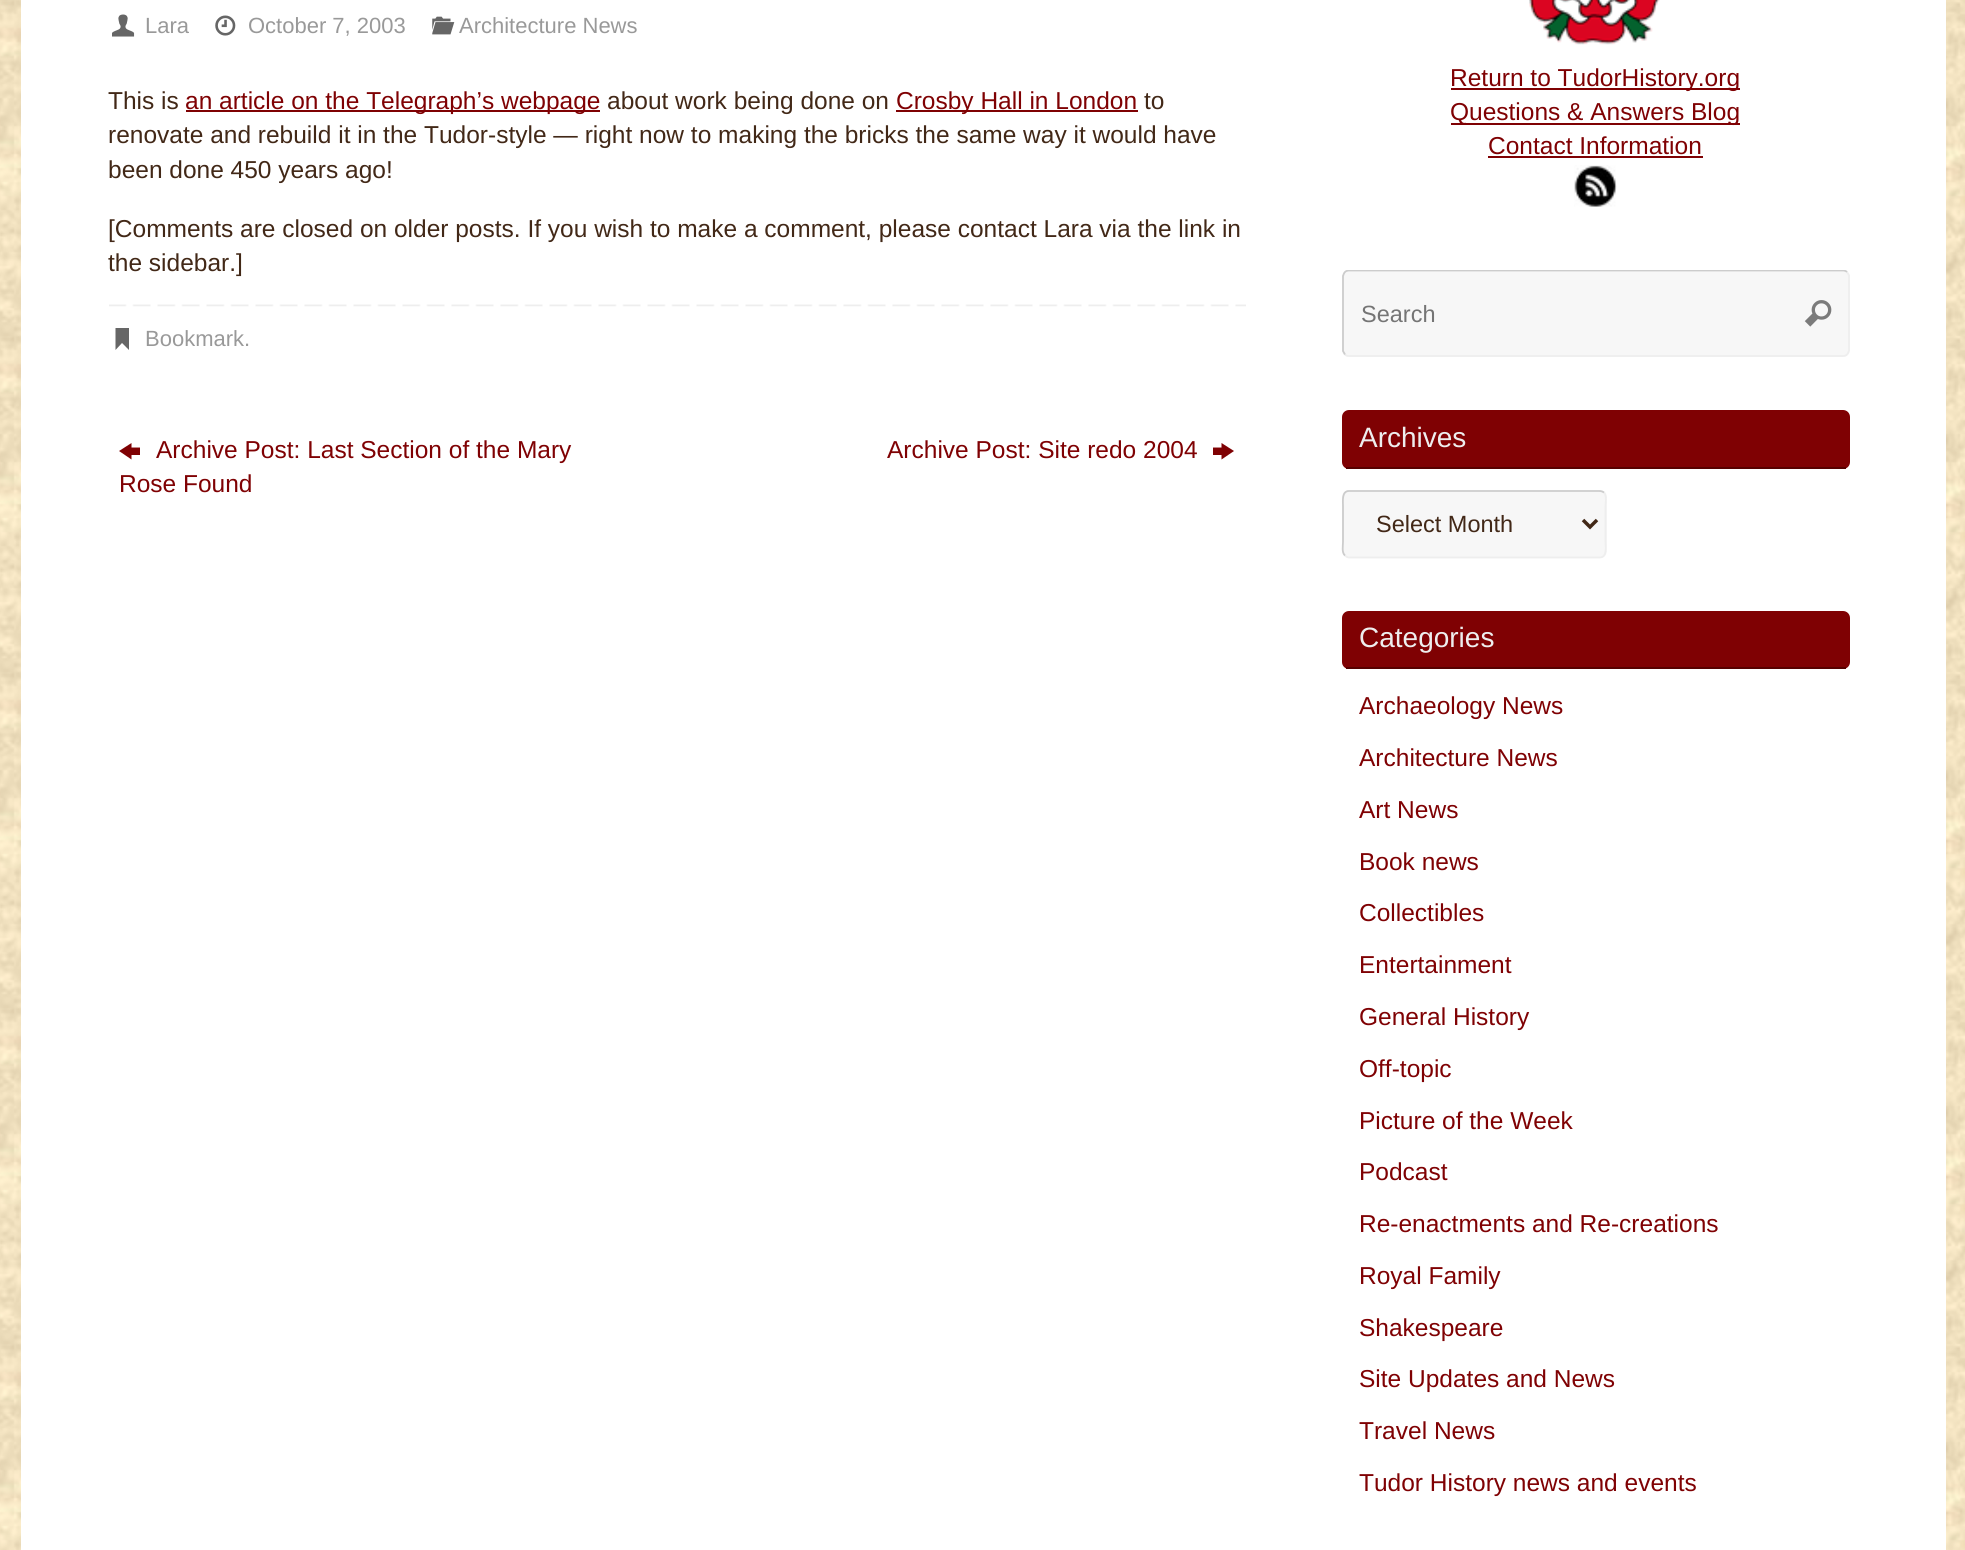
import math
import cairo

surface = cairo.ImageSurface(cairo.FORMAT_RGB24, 1965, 1550)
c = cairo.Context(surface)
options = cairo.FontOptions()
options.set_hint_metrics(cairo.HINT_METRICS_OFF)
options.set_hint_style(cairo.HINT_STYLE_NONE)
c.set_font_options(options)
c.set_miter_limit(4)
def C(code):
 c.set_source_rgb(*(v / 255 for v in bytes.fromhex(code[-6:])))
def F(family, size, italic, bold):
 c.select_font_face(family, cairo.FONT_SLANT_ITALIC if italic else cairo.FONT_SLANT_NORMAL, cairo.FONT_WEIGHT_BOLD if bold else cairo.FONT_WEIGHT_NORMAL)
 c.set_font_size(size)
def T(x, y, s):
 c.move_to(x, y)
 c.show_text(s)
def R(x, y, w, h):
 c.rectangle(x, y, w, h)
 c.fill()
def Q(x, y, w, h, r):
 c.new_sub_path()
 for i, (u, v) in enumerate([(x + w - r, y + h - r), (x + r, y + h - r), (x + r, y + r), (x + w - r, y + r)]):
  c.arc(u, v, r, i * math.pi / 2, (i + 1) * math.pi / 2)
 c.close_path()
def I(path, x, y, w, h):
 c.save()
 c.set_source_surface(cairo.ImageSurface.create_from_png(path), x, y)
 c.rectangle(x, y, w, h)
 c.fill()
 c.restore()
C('ffffff')
c.paint()
I('1.png',0,0,1965,1550)
C('ffffff')
R(21,0,1925,1550)
I('2.png',112,14,23,23)
F('Liberation Sans',22,0,0)
C('999999')
T(145,33,'Lara')
I('3.png',215,15,21,21)
T(248,33,'October 7, 2003')
I('4.png',432,16,23,19)
T(459,33,'Architecture News')
F('Liberation Sans',24.5,0,0)
C('422817')
T(108,109,'This is')
C('7f0103')
R(186,110,414,2)
T(185,109,'an article on the Telegraph’s webpage')
C('422817')
T(607,109,'about work being done on')
C('7f0103')
R(896,110,242,2)
T(896,109,'Crosby Hall in London')
C('422817')
T(1144,109,'to')
T(108,143,'renovate and rebuild it in the Tudor-style — right now to making the bricks the same way it would have')
T(108,178,'been done 450 years ago!')
T(108,237,'[Comments are closed on older posts. If you wish to make a comment, please contact Lara via the link in')
T(108,271,'the sidebar.]')
I('5.png',109,304,1137,3)
C('666666')
c.new_path()
c.move_to(115.5,347.5)
c.line_to(115.5,328)
c.line_to(129,328)
c.line_to(129,350)
c.line_to(122,343)
c.line_to(115.5,350)
c.close_path()
c.fill()
F('Liberation Sans',22,0,0)
C('999999')
T(145,346,'Bookmark.')
C('7f0103')
c.new_path()
c.move_to(119,451)
c.line_to(131.5,443)
c.line_to(131.5,447.5)
c.line_to(140,447.5)
c.line_to(140,455)
c.line_to(131.5,455)
c.line_to(131.5,459.5)
c.close_path()
c.fill()
F('Liberation Sans',24.5,0,0)
T(156,458,'Archive Post: Last Section of the Mary')
T(119,492,'Rose Found')
T(887,458,'Archive Post: Site redo 2004')
c.new_path()
c.move_to(1213,455)
c.line_to(1213,447.5)
c.line_to(1221.5,447.5)
c.line_to(1221.5,443)
c.line_to(1234,451)
c.line_to(1221.5,459.5)
c.line_to(1221.5,455)
c.close_path()
c.fill()
I('6.png',1529,0,131,45)
R(1451,88,289,2)
T(1450,86,'Return to TudorHistory.org')
R(1451,123,289,2)
T(1450,120,'Questions & Answers Blog')
T(1488,154,'Contact Information')
R(1488,156,215,2)
I('7.png',1574,165,43,42)
C('f7f7f7')
Q(1342,270,508,87,7)
c.fill()
c.new_path()
c.move_to(1847,272)
c.line_to(1849,275.5)
c.line_to(1849,350.5)
c.curve_to(1848.5,352,1848,353.5,1847,354.5)
c.curve_to(1846,355.5,1844.5,356,1843,356)
c.line_to(1349,356)
c.curve_to(1347.5,356,1346,355.5,1345,354.5)
C('eeeeee')
c.set_line_width(1.8)
c.stroke()
c.save()
c.rectangle(1342,270,508,87)
c.clip()
c.new_path()
c.move_to(1345,354.5)
c.line_to(1343,351)
c.line_to(1343,276)
c.curve_to(1343.5,274.5,1344,273,1345,272)
c.curve_to(1346,271,1347.5,270.5,1349,270.5)
c.line_to(1843,270.5)
c.curve_to(1844.5,270.5,1846,271,1847,272)
C('cccccc')
c.stroke()
c.restore()
F('Liberation Sans',23.5,0,0)
C('757575')
T(1361,322,'Search')
I('8.png',1804,300,28,27)
C('7f0103')
Q(1342,410,508,59,7)
c.fill()
C('570000')
R(1346,467,500,2)
F('Liberation Sans',28,0,0)
C('eeeeee')
T(1359,447,'Archives')
C('f7f7f7')
Q(1342,490,265,68,7)
c.fill()
c.new_path()
c.move_to(1604,492.5)
c.curve_to(1607,496,1605.5,503,1605.5,506)
c.line_to(1605.5,542)
c.curve_to(1605.5,547,1607.5,557.5,1599.5,557.5)
c.line_to(1349,557.5)
c.curve_to(1347.5,557.5,1346,556.5,1345,555.5)
C('eeeeee')
c.stroke()
c.new_path()
c.move_to(1345,555.5)
c.curve_to(1341.5,552.5,1343,545.5,1343,542)
c.line_to(1343,506)
c.curve_to(1343,501.5,1341.5,491,1349,491)
c.line_to(1599.5,491)
c.curve_to(1601,491,1602.5,491.5,1604,492.5)
C('cccccc')
c.stroke()
c.new_path()
c.move_to(1583,520)
c.line_to(1590,527)
c.line_to(1597,520)
C('422817')
c.set_line_width(3.5)
c.stroke()
F('Liberation Sans',23.5,0,0)
T(1376,532,'Select Month')
C('7f0103')
Q(1342,611,508,58,7)
c.fill()
C('570000')
R(1346,667,500,2)
F('Liberation Sans',28,0,0)
C('eeeeee')
T(1359,647,'Categories')
F('Liberation Sans',24.5,0,0)
C('7f0103')
T(1359,714,'Archaeology News')
T(1359,766,'Architecture News')
T(1359,818,'Art News')
T(1359,870,'Book news')
T(1359,921,'Collectibles')
T(1359,973,'Entertainment')
T(1359,1025,'General History')
T(1359,1077,'Off-topic')
T(1359,1129,'Picture of the Week')
T(1359,1180,'Podcast')
T(1359,1232,'Re-enactments and Re-creations')
T(1359,1284,'Royal Family')
T(1359,1336,'Shakespeare')
T(1359,1387,'Site Updates and News')
T(1359,1439,'Travel News')
T(1359,1491,'Tudor History news and events')
surface.write_to_png('o.png')
